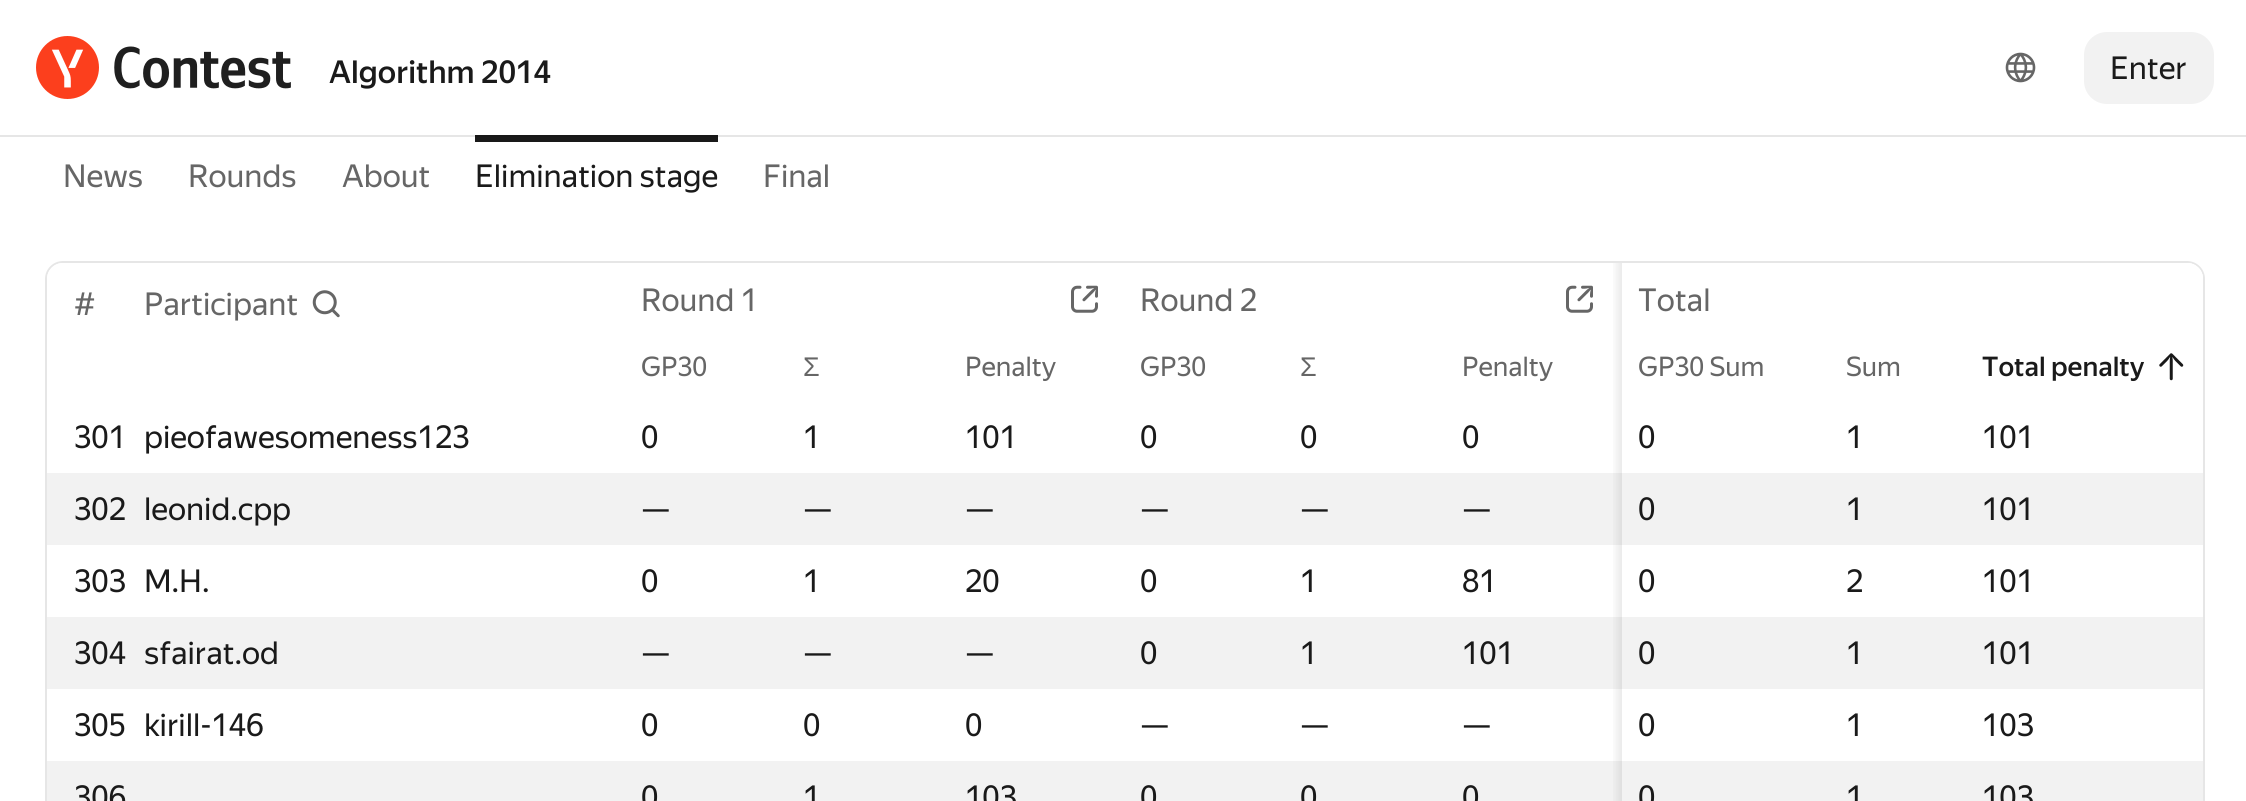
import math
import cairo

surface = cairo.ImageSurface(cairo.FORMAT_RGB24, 2246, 801)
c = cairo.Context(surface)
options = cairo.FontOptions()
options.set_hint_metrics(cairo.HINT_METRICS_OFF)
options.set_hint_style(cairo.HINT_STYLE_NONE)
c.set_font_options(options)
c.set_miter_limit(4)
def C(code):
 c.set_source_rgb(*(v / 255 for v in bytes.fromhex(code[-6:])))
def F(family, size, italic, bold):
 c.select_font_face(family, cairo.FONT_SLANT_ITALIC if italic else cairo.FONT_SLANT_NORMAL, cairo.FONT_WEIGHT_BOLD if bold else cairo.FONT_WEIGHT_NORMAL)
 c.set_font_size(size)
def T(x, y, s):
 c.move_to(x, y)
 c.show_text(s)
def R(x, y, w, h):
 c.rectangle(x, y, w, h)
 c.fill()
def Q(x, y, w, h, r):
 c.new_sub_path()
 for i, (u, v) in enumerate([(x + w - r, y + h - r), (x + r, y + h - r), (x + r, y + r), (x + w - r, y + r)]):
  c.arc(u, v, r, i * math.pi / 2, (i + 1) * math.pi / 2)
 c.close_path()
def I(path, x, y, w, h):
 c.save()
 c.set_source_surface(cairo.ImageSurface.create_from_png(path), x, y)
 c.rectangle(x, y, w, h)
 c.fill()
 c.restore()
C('ffffff')
c.paint()
C('191919')
R(475,137,243,5)
I('1.png',36,36,255,63)
F('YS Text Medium',31.5,0,0)
C('1a1a1a')
T(329,83,'Algorithm 2014')
I('2.png',2005,52,31,31)
C('f2f2f2')
Q(2084,32,130,72,23)
c.fill()
F('YS Text',31.5,0,0)
C('1a1a1a')
T(2110,79,'Enter')
C('e6e6e6')
R(0,135,2246,2)
C('171717')
R(475,135,243,2)
C('666666')
T(63,187,'News')
T(188,187,'Rounds')
T(342,187,'About')
C('1a1a1a')
T(475,187,'Elimination stage')
C('666666')
T(763,187,'Final')
Q(46,262,2158,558,17)
C('e6e6e6')
c.stroke()
C('ffffff')
c.new_path()
c.move_to(63,263)
c.line_to(623,263)
c.line_to(623,335)
c.line_to(47,335)
c.line_to(47,279)
c.curve_to(47,270,54,263,63,263)
c.close_path()
c.fill()
C('666666')
T(74,315,'#')
T(144,315,'Participant')
I('3.png',312,290,28,28)
C('1a1a1a')
T(74,448,'301')
T(144,448,'pieofawesomeness123')
C('f2f2f2')
R(47,473,2156,72)
C('1a1a1a')
T(74,520,'302')
T(144,520,'leonid.cpp')
T(74,592,'303')
T(144,592,'M.H.')
C('f2f2f2')
R(47,617,2156,72)
C('1a1a1a')
T(74,664,'304')
T(144,664,'sfairat.od')
T(74,736,'305')
T(144,736,'kirill-146')
C('f2f2f2')
R(47,761,2156,40)
C('1a1a1a')
T(74,808,'306')
C('ffffff')
c.new_path()
c.move_to(623,263)
c.line_to(2187,263)
c.curve_to(2196,263,2203,270,2203,279)
c.line_to(2203,335)
c.line_to(623,335)
c.close_path()
c.fill()
C('666666')
T(641,311,'Round 1')
I('4.png',1071,285,27,28)
T(1140,311,'Round 2')
I('4.png',1566,285,27,28)
F('YS Text',27,0,0)
T(641,376,'GP30')
F('Liberation Sans',27,0,0)
T(803,376,'Σ')
F('YS Text',27,0,0)
T(965,376,'Penalty')
T(1140,376,'GP30')
F('Liberation Sans',27,0,0)
T(1300,376,'Σ')
F('YS Text',27,0,0)
T(1462,376,'Penalty')
F('YS Text',31.5,0,0)
C('1a1a1a')
T(641,448,'0')
T(803,448,'1')
T(965,448,'101')
T(1140,448,'0')
T(1300,448,'0')
T(1462,448,'0')
T(641,520,'—')
T(803,520,'—')
T(965,520,'—')
T(1140,520,'—')
T(1300,520,'—')
T(1462,520,'—')
T(641,592,'0')
T(803,592,'1')
T(965,592,'20')
T(1140,592,'0')
T(1300,592,'1')
T(1462,592,'81')
T(641,664,'—')
T(803,664,'—')
T(965,664,'—')
T(1140,664,'0')
T(1300,664,'1')
T(1462,664,'101')
T(641,736,'0')
T(803,736,'0')
T(965,736,'0')
T(1140,736,'—')
T(1300,736,'—')
T(1462,736,'—')
T(641,808,'0')
T(803,808,'1')
T(965,808,'103')
T(1140,808,'0')
T(1300,808,'0')
T(1462,808,'0')
gradient = cairo.LinearGradient(1622,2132,1611,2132)
gradient.add_color_stop_rgba(0,0.196,0.196,0.196,.1)
gradient.add_color_stop_rgba(1,0.196,0.196,0.196,0)
c.set_source(gradient)
R(1613,263,9,538)
C('ffffff')
c.new_path()
c.move_to(1622,263)
c.line_to(2187,263)
c.curve_to(2196,263,2203,270,2203,279)
c.line_to(2203,335)
c.line_to(1622,335)
c.close_path()
c.fill()
C('666666')
T(1638,311,'Total')
F('YS Text',27,0,0)
T(1638,376,'GP30 Sum')
T(1846,376,'Sum')
F('YS Text Medium',27,0,0)
C('1a1a1a')
T(1982,376,'Total penalty')
I('5.png',2159,353,25,28)
F('YS Text',31.5,0,0)
T(1638,448,'0')
T(1846,448,'1')
T(1982,448,'101')
T(1638,520,'0')
T(1846,520,'1')
T(1982,520,'101')
T(1638,592,'0')
T(1846,592,'2')
T(1982,592,'101')
T(1638,664,'0')
T(1846,664,'1')
T(1982,664,'101')
T(1638,736,'0')
T(1846,736,'1')
T(1982,736,'103')
T(1638,808,'0')
T(1846,808,'1')
T(1982,808,'103')
surface.write_to_png('o.png')
